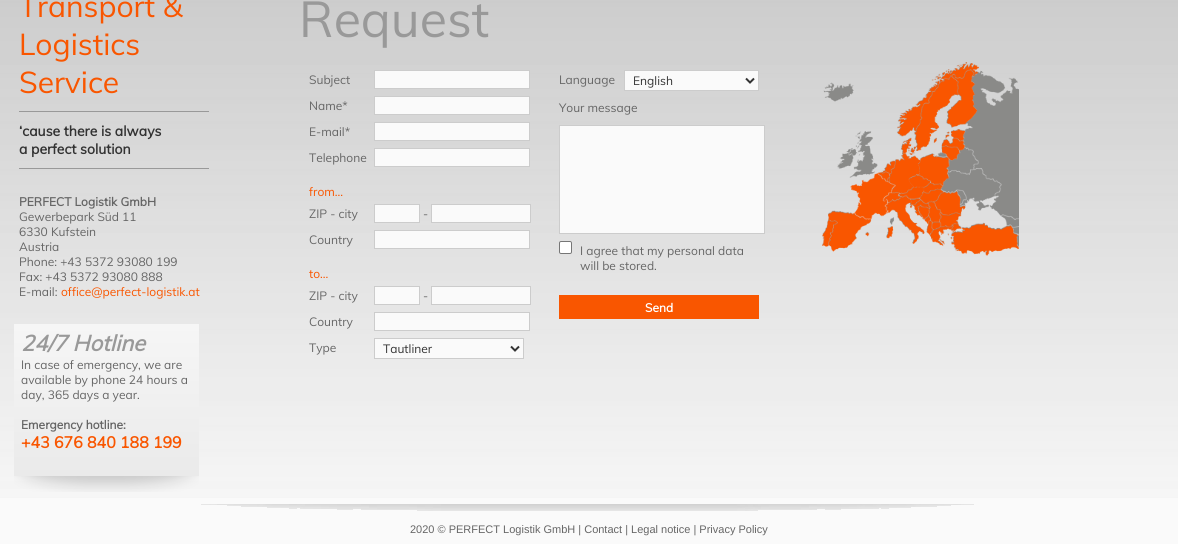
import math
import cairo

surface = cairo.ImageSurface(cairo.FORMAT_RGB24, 1178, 544)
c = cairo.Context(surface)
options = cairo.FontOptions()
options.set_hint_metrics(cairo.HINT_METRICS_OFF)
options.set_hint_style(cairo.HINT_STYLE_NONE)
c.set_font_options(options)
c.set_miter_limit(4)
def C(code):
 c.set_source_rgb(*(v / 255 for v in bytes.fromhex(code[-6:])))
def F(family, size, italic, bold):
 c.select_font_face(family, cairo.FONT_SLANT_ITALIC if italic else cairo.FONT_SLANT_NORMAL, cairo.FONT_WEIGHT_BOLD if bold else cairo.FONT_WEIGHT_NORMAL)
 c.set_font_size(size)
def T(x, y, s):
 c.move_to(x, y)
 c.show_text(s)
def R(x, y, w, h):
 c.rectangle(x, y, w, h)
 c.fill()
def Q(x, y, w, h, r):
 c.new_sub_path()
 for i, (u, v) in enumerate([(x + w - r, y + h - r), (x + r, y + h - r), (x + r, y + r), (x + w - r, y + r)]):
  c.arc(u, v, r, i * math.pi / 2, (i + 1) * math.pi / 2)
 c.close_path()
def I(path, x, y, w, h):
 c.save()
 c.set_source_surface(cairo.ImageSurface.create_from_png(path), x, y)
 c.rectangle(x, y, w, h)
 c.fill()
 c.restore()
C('fafafa')
c.paint()
I('1.png',0,0,1178,498)
F('Muli',30,0,0)
C('f95600')
T(19,17,'Transport &')
T(19,55,'Logistics')
T(19,93,'Service')
C('999999')
R(19,111,190,1)
F('Muli',14,0,1)
C('333333')
T(19,136,'‘cause there is always')
T(19,154,'a perfect solution')
C('999999')
R(19,168,190,1)
F('Muli',12,0,1)
C('666666')
T(19,206,'PERFECT Logistik GmbH')
F('Muli',12,0,0)
T(19,221,'Gewerbepark Süd 11')
T(19,236,'6330 Kufstein')
T(19,251,'Austria')
T(19,266,'Phone: +43 5372 93080 199')
T(19,281,'Fax: +43 5372 93080 888')
T(19,296,'E-mail:')
C('f95600')
T(61,296,'office@perfect-logistik.at')
I('2.png',14,324,185,168)
F('Muli',22,1,1)
C('999999')
T(21,351,'24/7 Hotline')
F('Muli',12,0,0)
C('666666')
T(21,369,'In case of emergency, we are')
T(21,384,'available by phone 24 hours a')
T(21,399,'day, 365 days a year.')
F('Muli',12,0,1)
T(21,429,'Emergency hotline:')
F('Muli',16,0,1)
C('f95600')
T(21,448,'+43 676 840 188 199')
F('Muli',50,0,0)
C('999999')
T(299,37,'Request')
F('Muli',12,0,0)
C('666666')
T(309,84,'Subject')
C('fafafa')
c.rectangle(374.5,70.5,155,18)
c.fill_preserve()
C('cccccc')
c.set_line_width(1)
c.stroke()
C('666666')
T(309,110,'Name*')
C('fafafa')
c.rectangle(374.5,96.5,155,18)
c.fill_preserve()
C('cccccc')
c.stroke()
C('666666')
T(309,136,'E-mail*')
C('fafafa')
c.rectangle(374.5,122.5,155,18)
c.fill_preserve()
C('cccccc')
c.stroke()
C('666666')
T(309,162,'Telephone')
C('fafafa')
c.rectangle(374.5,148.5,155,18)
c.fill_preserve()
C('cccccc')
c.stroke()
C('f95600')
T(309,196,'from...')
C('666666')
T(309,218,'ZIP - city')
C('fafafa')
c.rectangle(374.5,204.5,45,18)
c.fill_preserve()
C('cccccc')
c.stroke()
C('666666')
T(423,218,'-')
C('fafafa')
c.rectangle(431.5,204.5,99,18)
c.fill_preserve()
C('cccccc')
c.stroke()
C('666666')
T(309,244,'Country')
C('fafafa')
c.rectangle(374.5,230.5,155,18)
c.fill_preserve()
C('cccccc')
c.stroke()
C('f95600')
T(309,278,'to...')
C('666666')
T(309,300,'ZIP - city')
C('fafafa')
c.rectangle(374.5,286.5,45,18)
c.fill_preserve()
C('cccccc')
c.stroke()
C('666666')
T(423,300,'-')
C('fafafa')
c.rectangle(431.5,286.5,99,18)
c.fill_preserve()
C('cccccc')
c.stroke()
C('666666')
T(309,326,'Country')
C('fafafa')
c.rectangle(374.5,312.5,155,18)
c.fill_preserve()
C('cccccc')
c.stroke()
C('666666')
T(309,352,'Type')
C('fafafa')
c.rectangle(374.5,338.5,149,20)
c.fill_preserve()
C('cccccc')
c.stroke()
c.new_path()
c.move_to(511,346.5)
c.line_to(515,350.5)
c.line_to(519,346.5)
C('333333')
c.set_line_width(2)
c.stroke()
T(383,353,'Tautliner')
C('666666')
T(559,84,'Language')
C('fafafa')
c.rectangle(624.5,70.5,134,20)
c.fill_preserve()
C('cccccc')
c.set_line_width(1)
c.stroke()
c.new_path()
c.move_to(746,78.5)
c.line_to(750,82.5)
c.line_to(754,78.5)
C('333333')
c.set_line_width(2)
c.stroke()
T(633,85,'English')
C('666666')
T(559,112,'Your message')
C('fafafa')
c.rectangle(559.5,125.5,205,108)
c.fill_preserve()
C('cccccc')
c.set_line_width(1)
c.stroke()
C('ffffff')
Q(559.5,241.5,12,12,1.5)
c.fill_preserve()
C('767676')
c.stroke()
C('666666')
T(580,255,'I agree that my personal data')
T(580,270,'will be stored.')
C('f95600')
R(559,295,200,24)
F('Muli',12,0,1)
C('ffffff')
T(645,312,'Send')
I('3.png',822,62,197,194)
I('4.png',201,504,773,7)
F('Liberation Sans',11,0,0)
C('666666')
T(410,533,'2020 © PERFECT Logistik GmbH | Contact | Legal notice | Privacy Policy')
surface.write_to_png('o.png')
